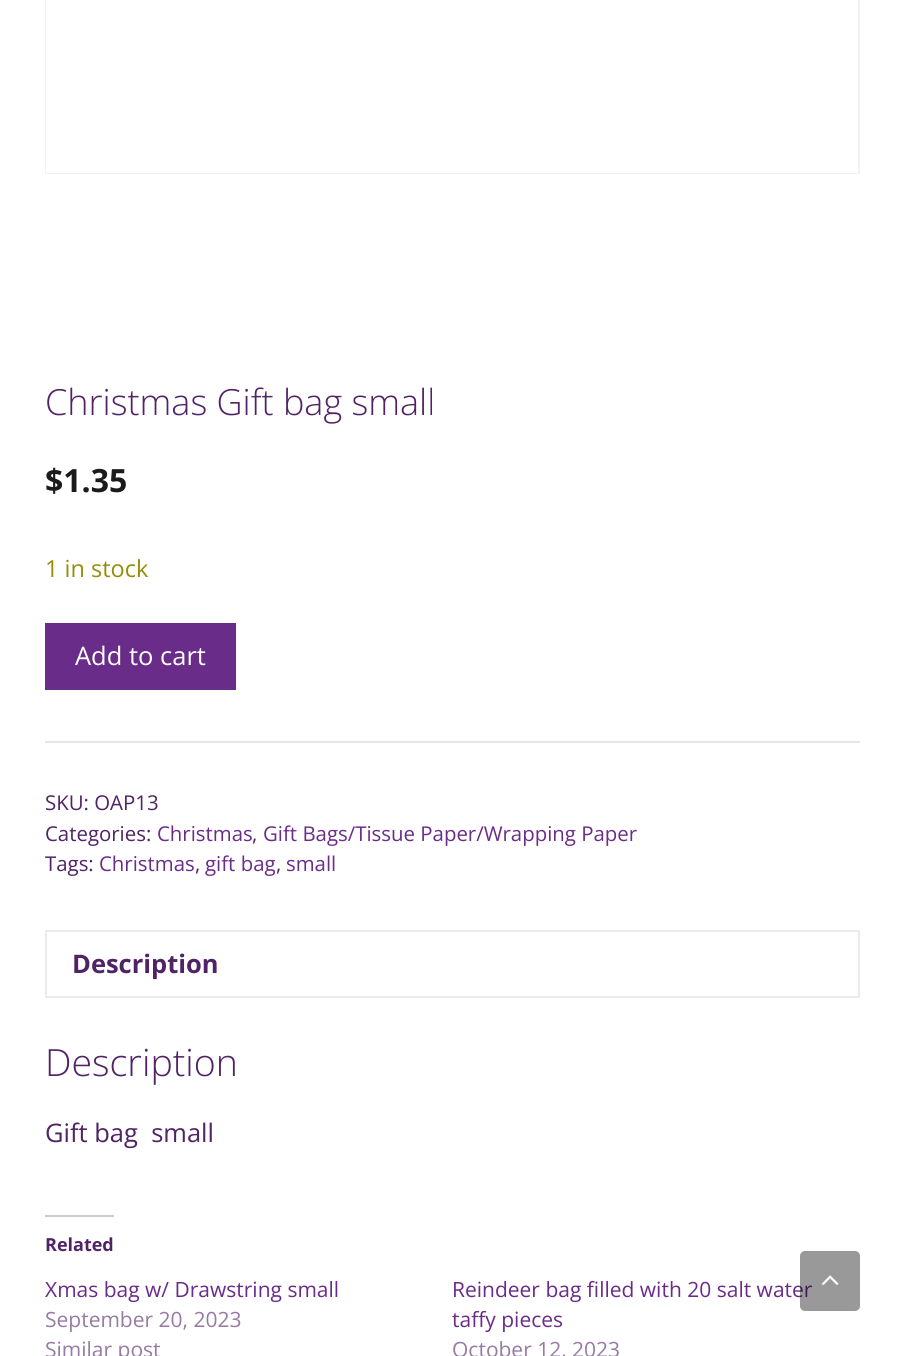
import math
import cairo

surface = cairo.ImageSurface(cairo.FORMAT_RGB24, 904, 1356)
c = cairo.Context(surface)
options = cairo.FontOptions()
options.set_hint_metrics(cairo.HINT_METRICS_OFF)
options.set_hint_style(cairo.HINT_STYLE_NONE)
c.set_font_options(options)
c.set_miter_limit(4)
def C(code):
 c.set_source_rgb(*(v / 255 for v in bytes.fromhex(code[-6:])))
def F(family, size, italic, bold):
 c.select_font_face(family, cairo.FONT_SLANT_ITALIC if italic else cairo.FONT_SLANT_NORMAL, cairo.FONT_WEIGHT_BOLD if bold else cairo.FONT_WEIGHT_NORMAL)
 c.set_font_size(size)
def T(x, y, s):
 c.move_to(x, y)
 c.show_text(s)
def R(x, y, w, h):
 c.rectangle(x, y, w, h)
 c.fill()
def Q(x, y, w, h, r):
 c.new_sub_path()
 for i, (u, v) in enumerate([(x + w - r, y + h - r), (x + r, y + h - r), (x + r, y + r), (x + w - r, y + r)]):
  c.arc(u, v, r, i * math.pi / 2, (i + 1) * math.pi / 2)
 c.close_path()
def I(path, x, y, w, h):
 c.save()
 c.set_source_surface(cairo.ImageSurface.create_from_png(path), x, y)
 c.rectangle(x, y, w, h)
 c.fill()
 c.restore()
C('ffffff')
c.paint()
c.rectangle(46,-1,813,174)
C('f2f2f2')
c.stroke()
C('ffffff')
R(46,0,812,173)
F('Open Sans Light',36,0,0)
C('502366')
T(45,415,'Christmas Gift bag small')
F('Open Sans',32,0,1)
C('1b1b1b')
T(45,492,'$1.35')
F('Open Sans',23.5,0,0)
C('958e09')
T(45,577,'1 in stock')
C('6a2c89')
R(45,623,191,67)
F('Open Sans',25.5,0,0)
C('ffffff')
T(75,665,'Add to cart')
C('e6e6e6')
R(45,741,815,2)
F('Open Sans',20.4,0,0)
C('502366')
T(45,810,'SKU: OAP13')
T(45,841,'Categories:')
C('6a2c89')
T(157,841,'Christmas')
C('502366')
T(252,841,',')
C('6a2c89')
T(263,841,'Gift Bags/Tissue Paper/Wrapping Paper')
C('502366')
T(45,871,'Tags:')
C('6a2c89')
T(99,871,'Christmas')
C('502366')
T(195,871,',')
C('6a2c89')
T(205,871,'gift bag')
C('502366')
T(276,871,',')
C('6a2c89')
T(286,871,'small')
c.rectangle(46,931,813,66)
C('ebebeb')
c.stroke()
F('Open Sans',25.5,0,1)
C('502366')
T(72,973,'Description')
F('Open Sans Light',37.5,0,0)
T(45,1076,'Description')
F('Open Sans',25.5,0,0)
T(45,1142,'Gift bag  small')
C('cccccc')
R(45,1215,69,2)
F('Open Sans',18,0,1)
C('502366')
T(45,1251,'Related')
F('Open Sans',21,0,0)
C('6a2c89')
T(45,1297,'Xmas bag w/ Drawstring small')
C('967ba3')
T(45,1327,'September 20, 2023')
T(45,1357,'Similar post')
C('6a2c89')
T(452,1297,'Reindeer bag filled with 20 salt water')
T(452,1327,'taffy pieces')
C('967ba3')
T(452,1357,'October 12, 2023')
c.set_source_rgba(0,0,0,0.4)
Q(800,1251,60,60,5)
c.fill()
I('1.png',821,1275,18,10)
surface.write_to_png('o.png')
